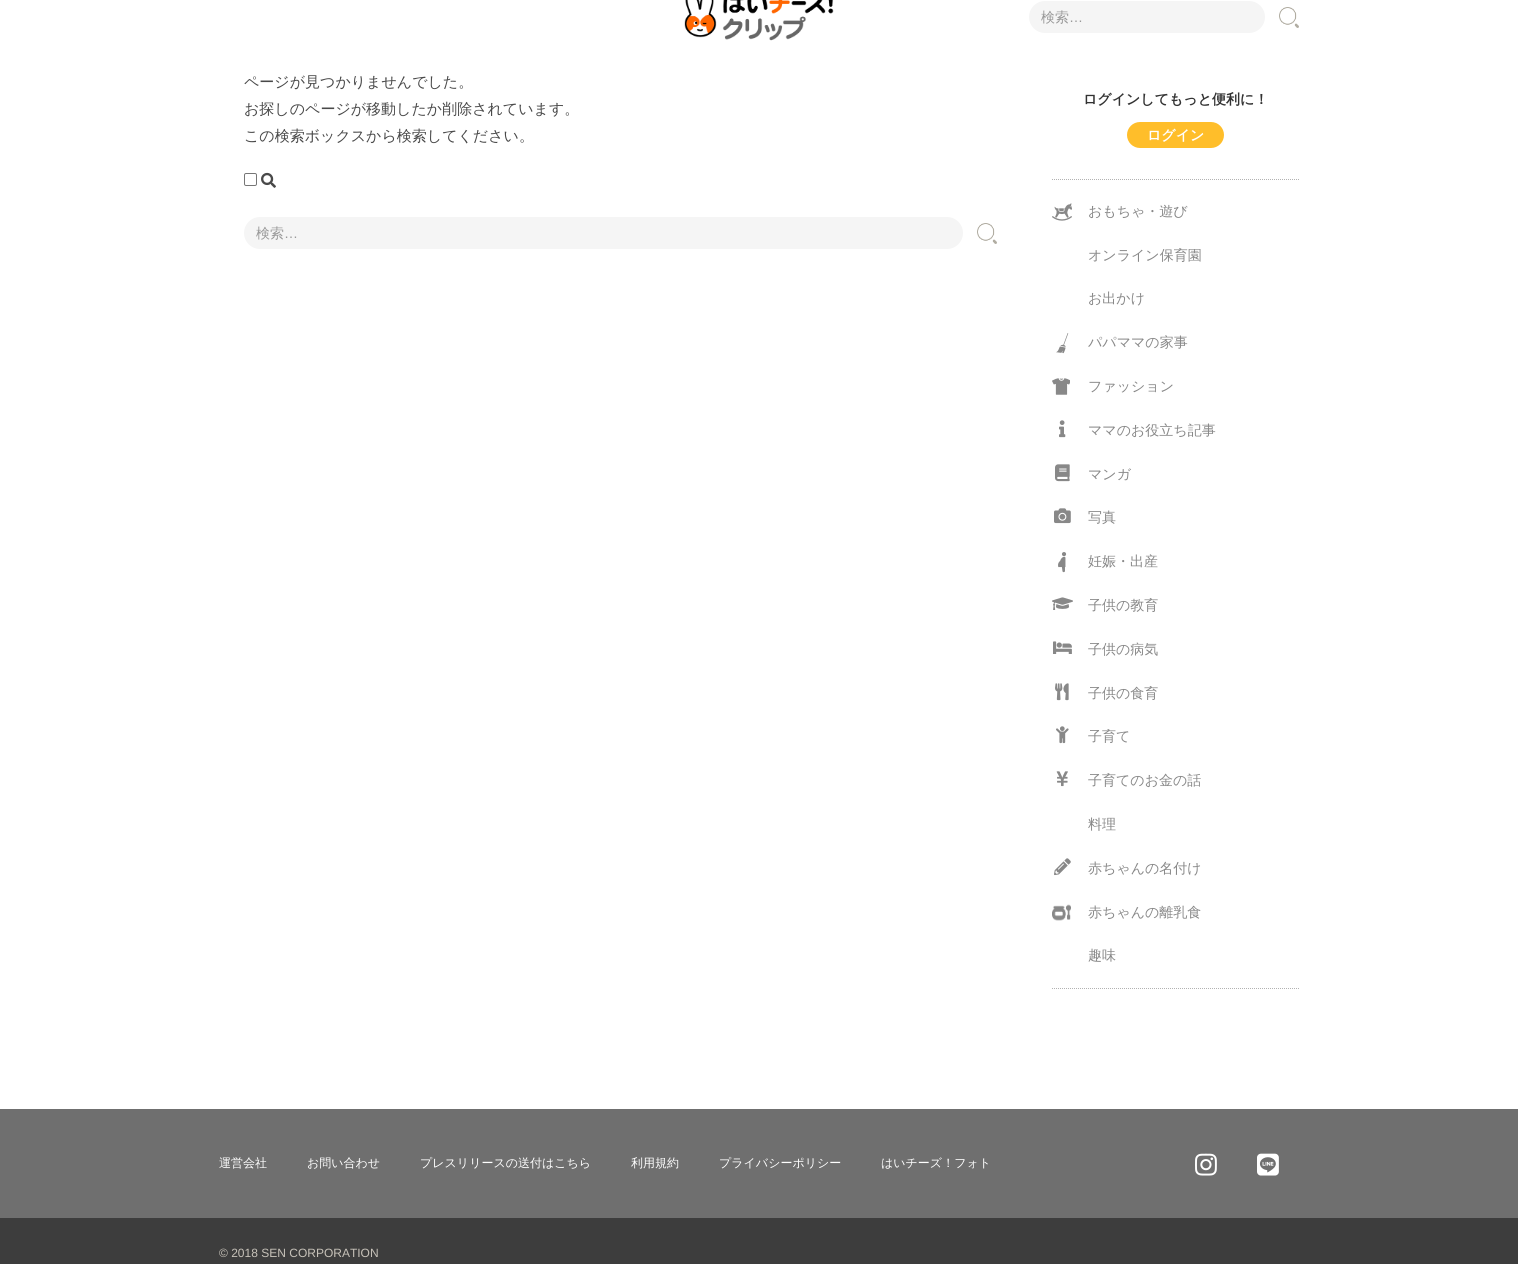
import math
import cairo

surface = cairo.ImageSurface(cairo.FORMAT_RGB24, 1518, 1264)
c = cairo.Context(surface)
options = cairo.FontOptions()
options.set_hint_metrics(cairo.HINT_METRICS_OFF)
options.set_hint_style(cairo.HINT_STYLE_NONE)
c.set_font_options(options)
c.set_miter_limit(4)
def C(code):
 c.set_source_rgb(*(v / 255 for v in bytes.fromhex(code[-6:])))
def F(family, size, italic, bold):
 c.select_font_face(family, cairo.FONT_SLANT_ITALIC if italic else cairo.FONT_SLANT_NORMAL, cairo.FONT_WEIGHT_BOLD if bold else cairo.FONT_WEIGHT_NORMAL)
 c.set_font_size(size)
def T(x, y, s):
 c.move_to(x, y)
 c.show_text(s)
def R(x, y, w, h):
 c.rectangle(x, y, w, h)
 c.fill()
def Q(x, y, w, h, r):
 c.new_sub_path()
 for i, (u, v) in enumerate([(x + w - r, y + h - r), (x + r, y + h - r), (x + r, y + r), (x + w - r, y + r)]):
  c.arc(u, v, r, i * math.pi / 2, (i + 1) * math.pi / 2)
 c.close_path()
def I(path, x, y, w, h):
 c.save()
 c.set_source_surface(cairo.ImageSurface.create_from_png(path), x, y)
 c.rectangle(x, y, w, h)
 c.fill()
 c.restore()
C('ffffff')
c.paint()
I('1.png',684,0,150,41)
C('f5f5f5')
Q(1029,1,236,32,16)
c.fill()
F('WenQuanYi Zen Hei Medium',14,0,0)
C('999999')
T(1041,22,'検索')
F('Liberation Sans',14,0,0)
T(1069,22,'…')
I('2.png',1279,7,20,21)
F('WenQuanYi Zen Hei Medium',15,0,0)
C('494949')
T(244,87,'ページが見つかりませんでした。')
T(244,114,'お探しのページが移動したか削除されています。')
T(244,141,'この検索ボックスから検索してください。')
Q(244.5,173.5,12,12,1.5)
C('767676')
c.set_line_width(1)
c.stroke()
I('3.png',261,172,15,16)
C('f5f5f5')
Q(244,217,719,32,16)
c.fill()
F('WenQuanYi Zen Hei Medium',14,0,0)
C('999999')
T(256,238,'検索')
F('Liberation Sans',14,0,0)
T(284,238,'…')
I('2.png',977,223,20,21)
F('WenQuanYi Zen Hei',14,0,1)
C('333333')
T(1083,104,'ログインしてもっと便利に！')
C('ffbe2a')
Q(1127,122,97,26,13)
c.fill()
C('ffffff')
T(1147,140,'ログイン')
c.new_path()
c.move_to(1052,179.5)
c.line_to(1299,179.5)
C('b2b2b2')
c.set_dash([1,1])
c.stroke()
c.new_path()
c.move_to(1052,988.5)
c.line_to(1299,988.5)
c.stroke()
I('4.png',1052,203,20,18)
F('WenQuanYi Zen Hei Medium',14,0,0)
C('888888')
T(1088,216,'おもちゃ・遊び')
T(1088,260,'オンライン保育園')
T(1088,303,'お出かけ')
I('5.png',1056,333,13,21)
T(1088,347,'パパママの家事')
I('6.png',1052,378,18,17)
T(1088,391,'ファッション')
I('7.png',1059,420,7,18)
T(1088,435,'ママのお役立ち記事')
I('8.png',1055,464,15,18)
T(1088,479,'マンガ')
I('9.png',1054,508,17,16)
T(1088,522,'写真')
I('10.png',1058,552,9,21)
T(1088,566,'妊娠・出産')
I('11.png',1052,597,21,13)
T(1088,610,'子供の教育')
I('12.png',1053,641,19,13)
T(1088,654,'子供の病気')
I('13.png',1055,683,14,18)
T(1088,698,'子供の食育')
I('14.png',1056,726,13,18)
T(1088,741,'子育て')
I('15.png',1056,771,12,16)
T(1088,785,'子育てのお金の話')
T(1088,829,'料理')
I('16.png',1054,858,17,18)
T(1088,873,'赤ちゃんの名付け')
I('17.png',1052,904,19,17)
T(1088,917,'赤ちゃんの離乳食')
T(1088,960,'趣味')
C('6f6f6f')
R(0,1109,1518,109)
F('WenQuanYi Zen Hei Medium',12,0,0)
C('ffffff')
T(219,1167,'運営会社')
T(307,1167,'お問い合わせ')
T(420,1167,'プレスリリースの送付はこちら')
T(631,1167,'利用規約')
T(719,1167,'プライバシーポリシー')
T(881,1167,'はいチーズ！フォト')
I('18.png',1195,1153,22,23)
I('19.png',1257,1153,22,23)
C('3d3d3d')
R(0,1218,1518,46)
F('Liberation Sans',12,0,0)
C('c7c2b9')
T(219,1257,'© 2018 SEN CORPORATION')
surface.write_to_png('o.png')
